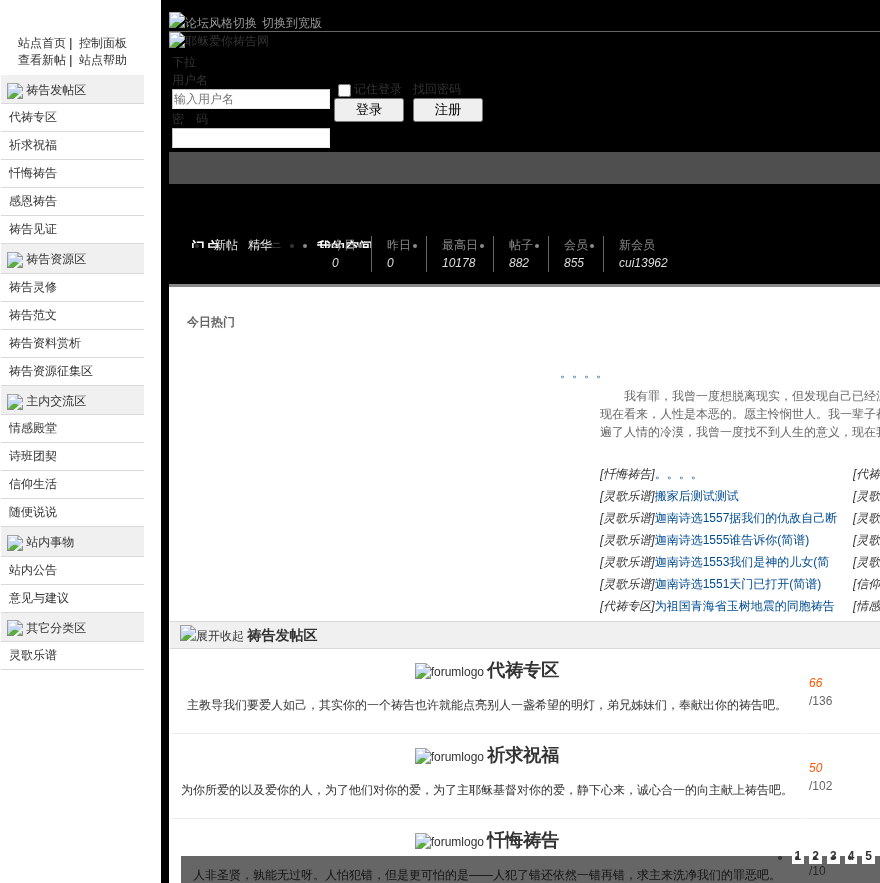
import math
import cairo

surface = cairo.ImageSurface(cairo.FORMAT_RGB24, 880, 883)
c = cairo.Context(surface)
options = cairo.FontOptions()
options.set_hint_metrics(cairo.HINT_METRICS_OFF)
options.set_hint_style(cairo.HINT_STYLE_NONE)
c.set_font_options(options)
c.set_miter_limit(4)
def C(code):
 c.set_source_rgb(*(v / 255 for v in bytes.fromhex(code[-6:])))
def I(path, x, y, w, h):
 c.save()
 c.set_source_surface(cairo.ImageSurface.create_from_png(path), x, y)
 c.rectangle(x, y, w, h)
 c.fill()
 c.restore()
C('ffffff')
c.paint()
I('1.png',1,37,143,633)
I('2.png',161,0,719,883)
surface.write_to_png('o.png')
